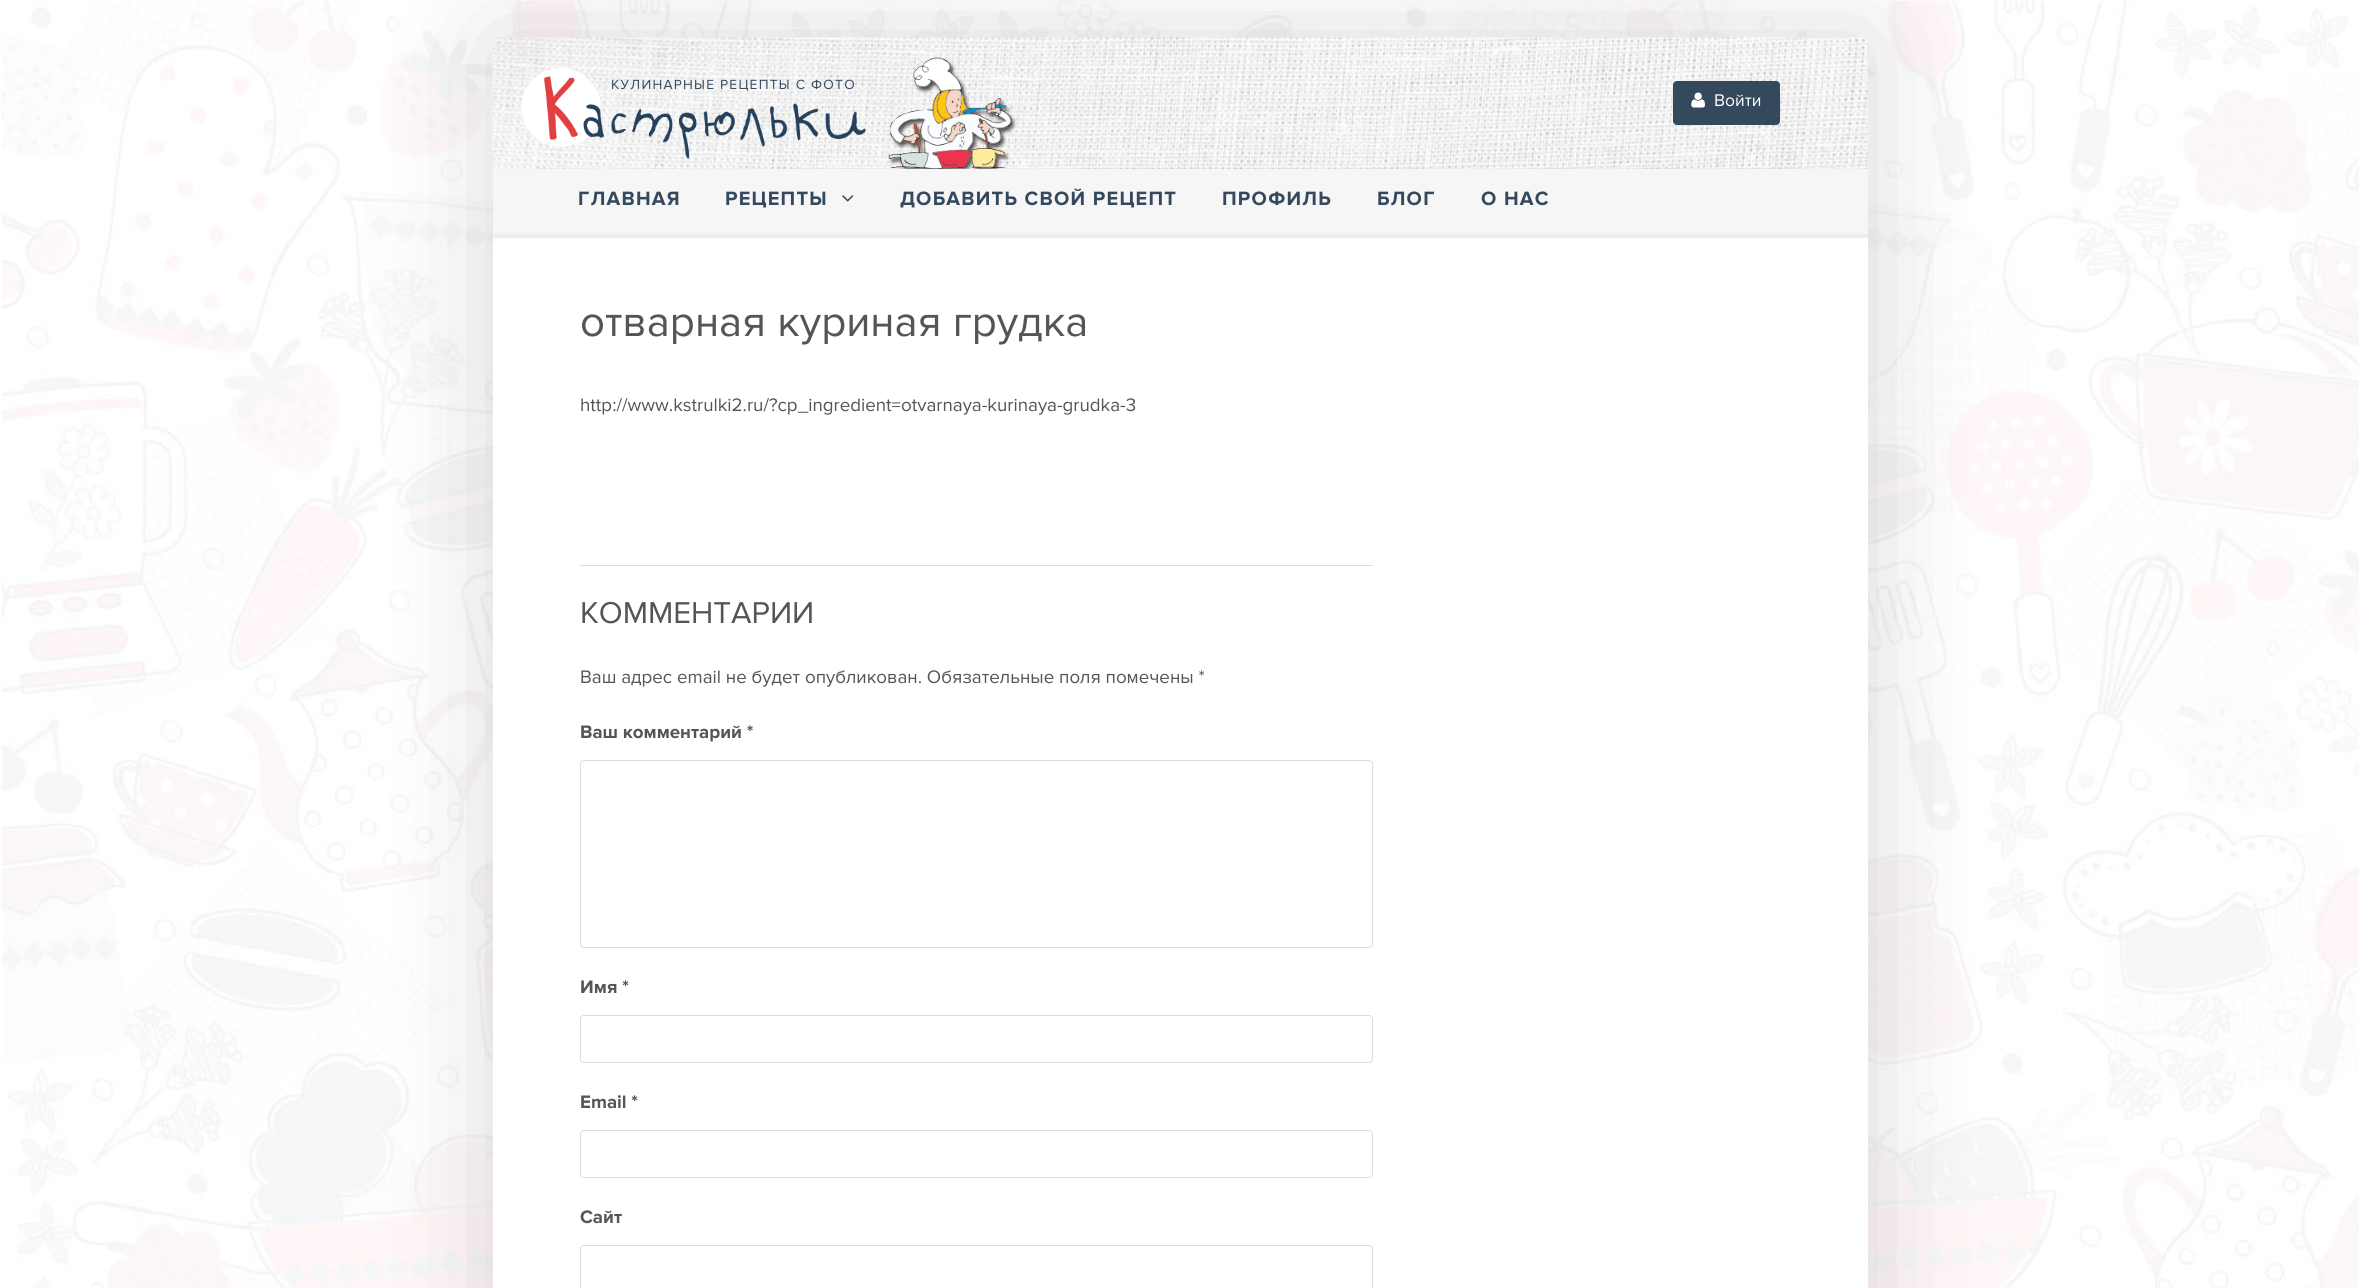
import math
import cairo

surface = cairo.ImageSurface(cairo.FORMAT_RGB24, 2359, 1288)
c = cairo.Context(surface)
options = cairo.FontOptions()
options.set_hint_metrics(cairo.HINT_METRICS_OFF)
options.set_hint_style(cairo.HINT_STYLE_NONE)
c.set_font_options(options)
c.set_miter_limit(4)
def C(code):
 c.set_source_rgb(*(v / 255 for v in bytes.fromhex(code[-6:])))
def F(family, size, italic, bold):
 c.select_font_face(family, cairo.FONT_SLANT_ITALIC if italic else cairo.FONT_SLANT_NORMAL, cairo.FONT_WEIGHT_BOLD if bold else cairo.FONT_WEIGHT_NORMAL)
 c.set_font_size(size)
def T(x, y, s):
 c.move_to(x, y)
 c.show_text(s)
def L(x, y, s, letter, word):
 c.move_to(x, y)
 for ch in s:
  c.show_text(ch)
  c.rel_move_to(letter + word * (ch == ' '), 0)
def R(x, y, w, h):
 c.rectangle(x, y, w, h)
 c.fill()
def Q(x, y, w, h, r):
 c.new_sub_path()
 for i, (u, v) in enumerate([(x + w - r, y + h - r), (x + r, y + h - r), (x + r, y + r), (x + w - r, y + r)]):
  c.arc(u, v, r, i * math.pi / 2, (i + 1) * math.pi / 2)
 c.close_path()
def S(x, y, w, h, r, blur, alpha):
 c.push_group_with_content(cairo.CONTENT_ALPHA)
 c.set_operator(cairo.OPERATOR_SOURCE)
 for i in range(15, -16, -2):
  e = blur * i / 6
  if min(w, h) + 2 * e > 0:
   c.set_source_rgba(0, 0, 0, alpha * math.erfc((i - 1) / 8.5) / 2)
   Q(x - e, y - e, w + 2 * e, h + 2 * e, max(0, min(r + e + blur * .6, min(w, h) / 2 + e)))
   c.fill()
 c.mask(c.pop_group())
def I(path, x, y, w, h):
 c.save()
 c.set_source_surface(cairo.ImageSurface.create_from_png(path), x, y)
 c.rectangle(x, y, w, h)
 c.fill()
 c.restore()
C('ffffff')
c.paint()
I('1.png',1,0,2358,1288)
C('000000')
S(494,39,1375,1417,0,56,.15)
C('ededed')
c.new_path()
c.move_to(493,234)
c.line_to(493,238)
c.line_to(1868,238)
c.line_to(1868,41)
c.line_to(1868,234)
c.close_path()
c.fill()
I('2.png',492,37,1376,132)
I('3.png',521,68,345,91)
I('4.png',888,57,128,112)
F('Proxima Nova',13.75,0,0)
C('34495e')
L(611,89,'КУЛИНАРНЫЕ РЕЦЕПТЫ С ФОТО',1.25,0)
Q(1673,81,107,44,4)
c.fill()
I('5.png',1691,92,14,16)
F('Proxima Nova',17.5,0,0)
C('ffffff')
T(1714,106,'Войти')
C('f6f6f6')
R(493,169,1375,65)
F('Proxima Nova',20,0,1)
C('34495e')
L(578,205,'ГЛАВНАЯ',1.25,0)
L(725,205,'РЕЦЕПТЫ',1.25,0)
I('6.png',842,195,12,7)
L(900,205,'ДОБАВИТЬ СВОЙ РЕЦЕПТ',1.25,0)
L(1222,205,'ПРОФИЛЬ',1.25,0)
L(1377,205,'БЛОГ',1.25,0)
L(1481,205,'О НАС',1.25,0)
C('ffffff')
R(493,238,1375,1050)
F('Proxima Nova',43.75,0,0)
C('555555')
T(580,336,'отварная куриная грудка')
F('Proxima Nova',18.75,0,0)
T(580,411,'http://www.kstrulki2.ru/?cp_ingredient=otvarnaya-kurinaya-grudka-3')
C('dddddd')
R(580,565,793,1)
F('Proxima Nova',31.25,0,0)
C('555555')
T(580,623,'КОММЕНТАРИИ')
F('Proxima Nova',18.75,0,0)
T(580,683,'Ваш адрес email не будет опубликован. Обязательные поля помечены *')
F('Proxima Nova',18.75,0,1)
T(580,738,'Ваш комментарий *')
Q(580.5,760.5,792,187,3.5)
C('dddddd')
c.set_line_width(1)
c.stroke()
C('555555')
T(580,993,'Имя *')
Q(580.5,1015.5,792,47,3.5)
C('dddddd')
c.stroke()
C('555555')
T(580,1108,'Email *')
Q(580.5,1130.5,792,47,3.5)
C('dddddd')
c.stroke()
C('555555')
T(580,1223,'Сайт')
Q(580.5,1245.5,792,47,3.5)
C('dddddd')
c.stroke()
surface.write_to_png('o.png')
